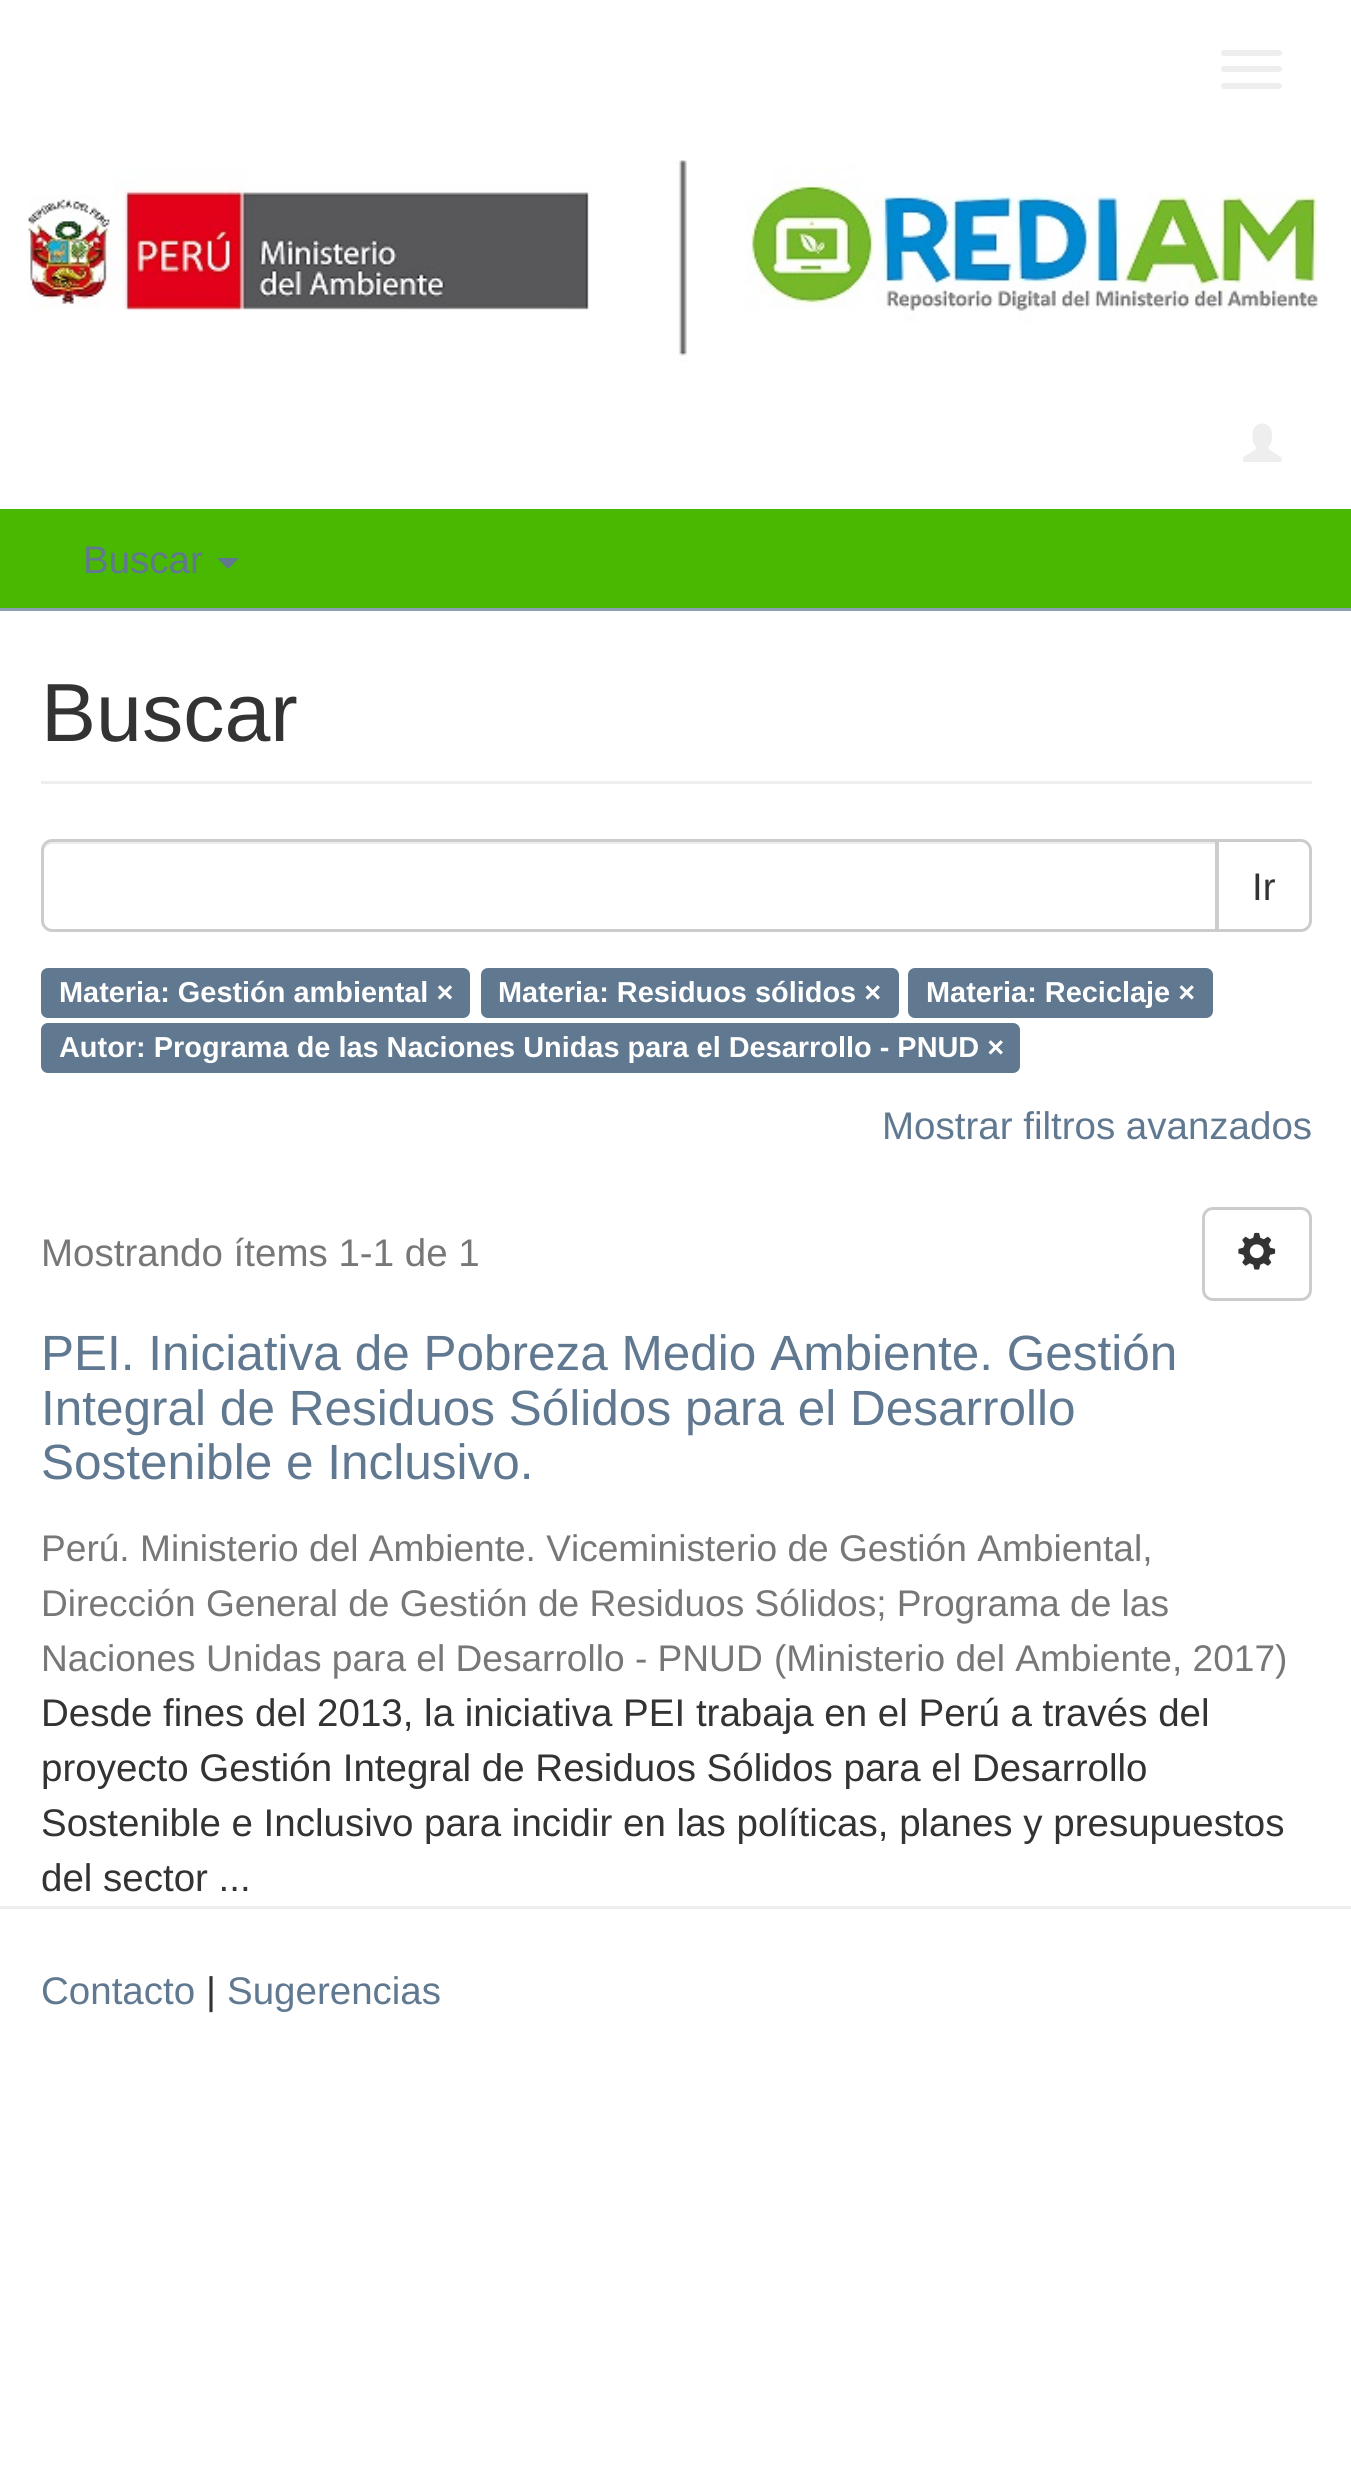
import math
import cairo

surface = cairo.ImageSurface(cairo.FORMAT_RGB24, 1351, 2470)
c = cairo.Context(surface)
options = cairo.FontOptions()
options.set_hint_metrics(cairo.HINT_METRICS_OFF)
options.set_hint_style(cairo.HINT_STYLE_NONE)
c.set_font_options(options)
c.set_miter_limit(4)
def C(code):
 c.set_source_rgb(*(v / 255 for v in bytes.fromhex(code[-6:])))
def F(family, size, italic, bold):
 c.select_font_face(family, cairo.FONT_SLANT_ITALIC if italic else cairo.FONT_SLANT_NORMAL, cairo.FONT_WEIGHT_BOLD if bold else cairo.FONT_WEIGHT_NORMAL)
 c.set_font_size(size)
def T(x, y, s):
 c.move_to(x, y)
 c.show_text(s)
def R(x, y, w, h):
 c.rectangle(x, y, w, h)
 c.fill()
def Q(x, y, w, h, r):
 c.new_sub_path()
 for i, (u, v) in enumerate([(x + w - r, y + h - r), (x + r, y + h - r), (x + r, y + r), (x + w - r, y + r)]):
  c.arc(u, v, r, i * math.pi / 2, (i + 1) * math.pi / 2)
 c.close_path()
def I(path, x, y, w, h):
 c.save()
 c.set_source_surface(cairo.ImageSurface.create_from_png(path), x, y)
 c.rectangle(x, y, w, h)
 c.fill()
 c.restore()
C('ffffff')
c.paint()
C('eeeeee')
Q(1221,50,61,6,3)
c.fill()
Q(1221,66,61,6,3)
c.fill()
Q(1221,83,61,6,3)
c.fill()
I('1.png',27,160,1292,202)
I('2.png',1243,423,39,39)
C('48b800')
R(0,509,1351,99)
C('8b9eb2')
R(0,608,1351,3)
F('Liberation Sans',38.5,0,0)
C('607890')
T(83,573,'Buscar')
c.new_path()
c.move_to(217,558)
c.line_to(239,558)
c.line_to(228,569)
c.close_path()
c.fill()
C('eeeeee')
R(41,781,1271,3)
F('Liberation Sans',82.5,0,0)
C('333333')
T(41,741,'Buscar')
c.new_path()
c.move_to(1217.5,840.5)
c.line_to(1301,840.5)
c.curve_to(1306,840.5,1310.5,845,1310.5,850)
c.line_to(1310.5,921)
c.curve_to(1310.5,926,1306,930.5,1301,930.5)
c.line_to(1217.5,930.5)
c.close_path()
C('cccccc')
c.set_line_width(3)
c.stroke()
C('ffffff')
c.new_path()
c.move_to(52,839)
c.line_to(1218,839)
c.line_to(1218,932)
c.line_to(52,932)
c.curve_to(46,932,41,927,41,921)
c.line_to(41,850)
c.curve_to(41,844,46,839,52,839)
c.close_path()
c.fill()
C('ececec')
c.new_path()
c.move_to(52,844)
c.line_to(1216,844)
c.line_to(1216,842)
c.line_to(52,842)
c.curve_to(46,842,44,847,44,852)
c.curve_to(44,848,48,844,52,844)
c.close_path()
c.fill()
c.new_path()
c.move_to(52,840.5)
c.line_to(1216.5,840.5)
c.line_to(1216.5,930.5)
c.line_to(52,930.5)
c.curve_to(47,930.5,42.5,926,42.5,921)
c.line_to(42.5,850)
c.curve_to(42.5,845,47,840.5,52,840.5)
c.close_path()
C('cccccc')
c.stroke()
F('Liberation Sans',38.5,0,0)
C('333333')
T(1252,900,'Ir')
C('607890')
Q(41,968,429,50,7)
c.fill()
F('Liberation Sans',28.9,0,1)
C('ffffff')
T(59,1002,'Materia: Gestión ambiental ×')
C('607890')
Q(481,968,418,50,7)
c.fill()
C('ffffff')
T(498,1002,'Materia: Residuos sólidos ×')
C('607890')
Q(908,968,305,50,7)
c.fill()
C('ffffff')
T(926,1002,'Materia: Reciclaje ×')
C('607890')
Q(41,1023,979,50,7)
c.fill()
C('ffffff')
T(59,1057,'Autor: Programa de las Naciones Unidas para el Desarrollo - PNUD ×')
F('Liberation Sans',38.5,0,0)
C('607890')
T(882,1139,'Mostrar filtros avanzados')
C('777777')
T(41,1266,'Mostrando ítems 1-1 de 1')
Q(1203.5,1208.5,107,91,9.5)
C('cccccc')
c.stroke()
I('3.png',1238,1232,38,38)
F('Liberation Sans',49.5,0,0)
C('607890')
T(41,1370,'PEI. Iniciativa de Pobreza Medio Ambiente. Gestión')
T(41,1425,'Integral de Residuos Sólidos para el Desarrollo')
T(41,1479,'Sostenible e Inclusivo.')
F('Liberation Sans',37.1,0,0)
C('777777')
T(41,1561,'Perú. Ministerio del Ambiente. Viceministerio de Gestión Ambiental,')
T(41,1616,'Dirección General de Gestión de Residuos Sólidos; Programa de las')
T(41,1671,'Naciones Unidas para el Desarrollo - PNUD')
T(774,1671,'(Ministerio del Ambiente, 2017)')
F('Liberation Sans',38.5,0,0)
C('333333')
T(41,1726,'Desde fines del 2013, la iniciativa PEI trabaja en el Perú a través del')
T(41,1781,'proyecto Gestión Integral de Residuos Sólidos para el Desarrollo')
T(41,1836,'Sostenible e Inclusivo para incidir en las políticas, planes y presupuestos')
T(41,1891,'del sector ...')
C('eeeeee')
R(0,1906,1351,3)
C('607890')
T(41,2004,'Contacto')
C('333333')
T(206,2004,'|')
C('607890')
T(227,2004,'Sugerencias')
surface.write_to_png('o.png')
